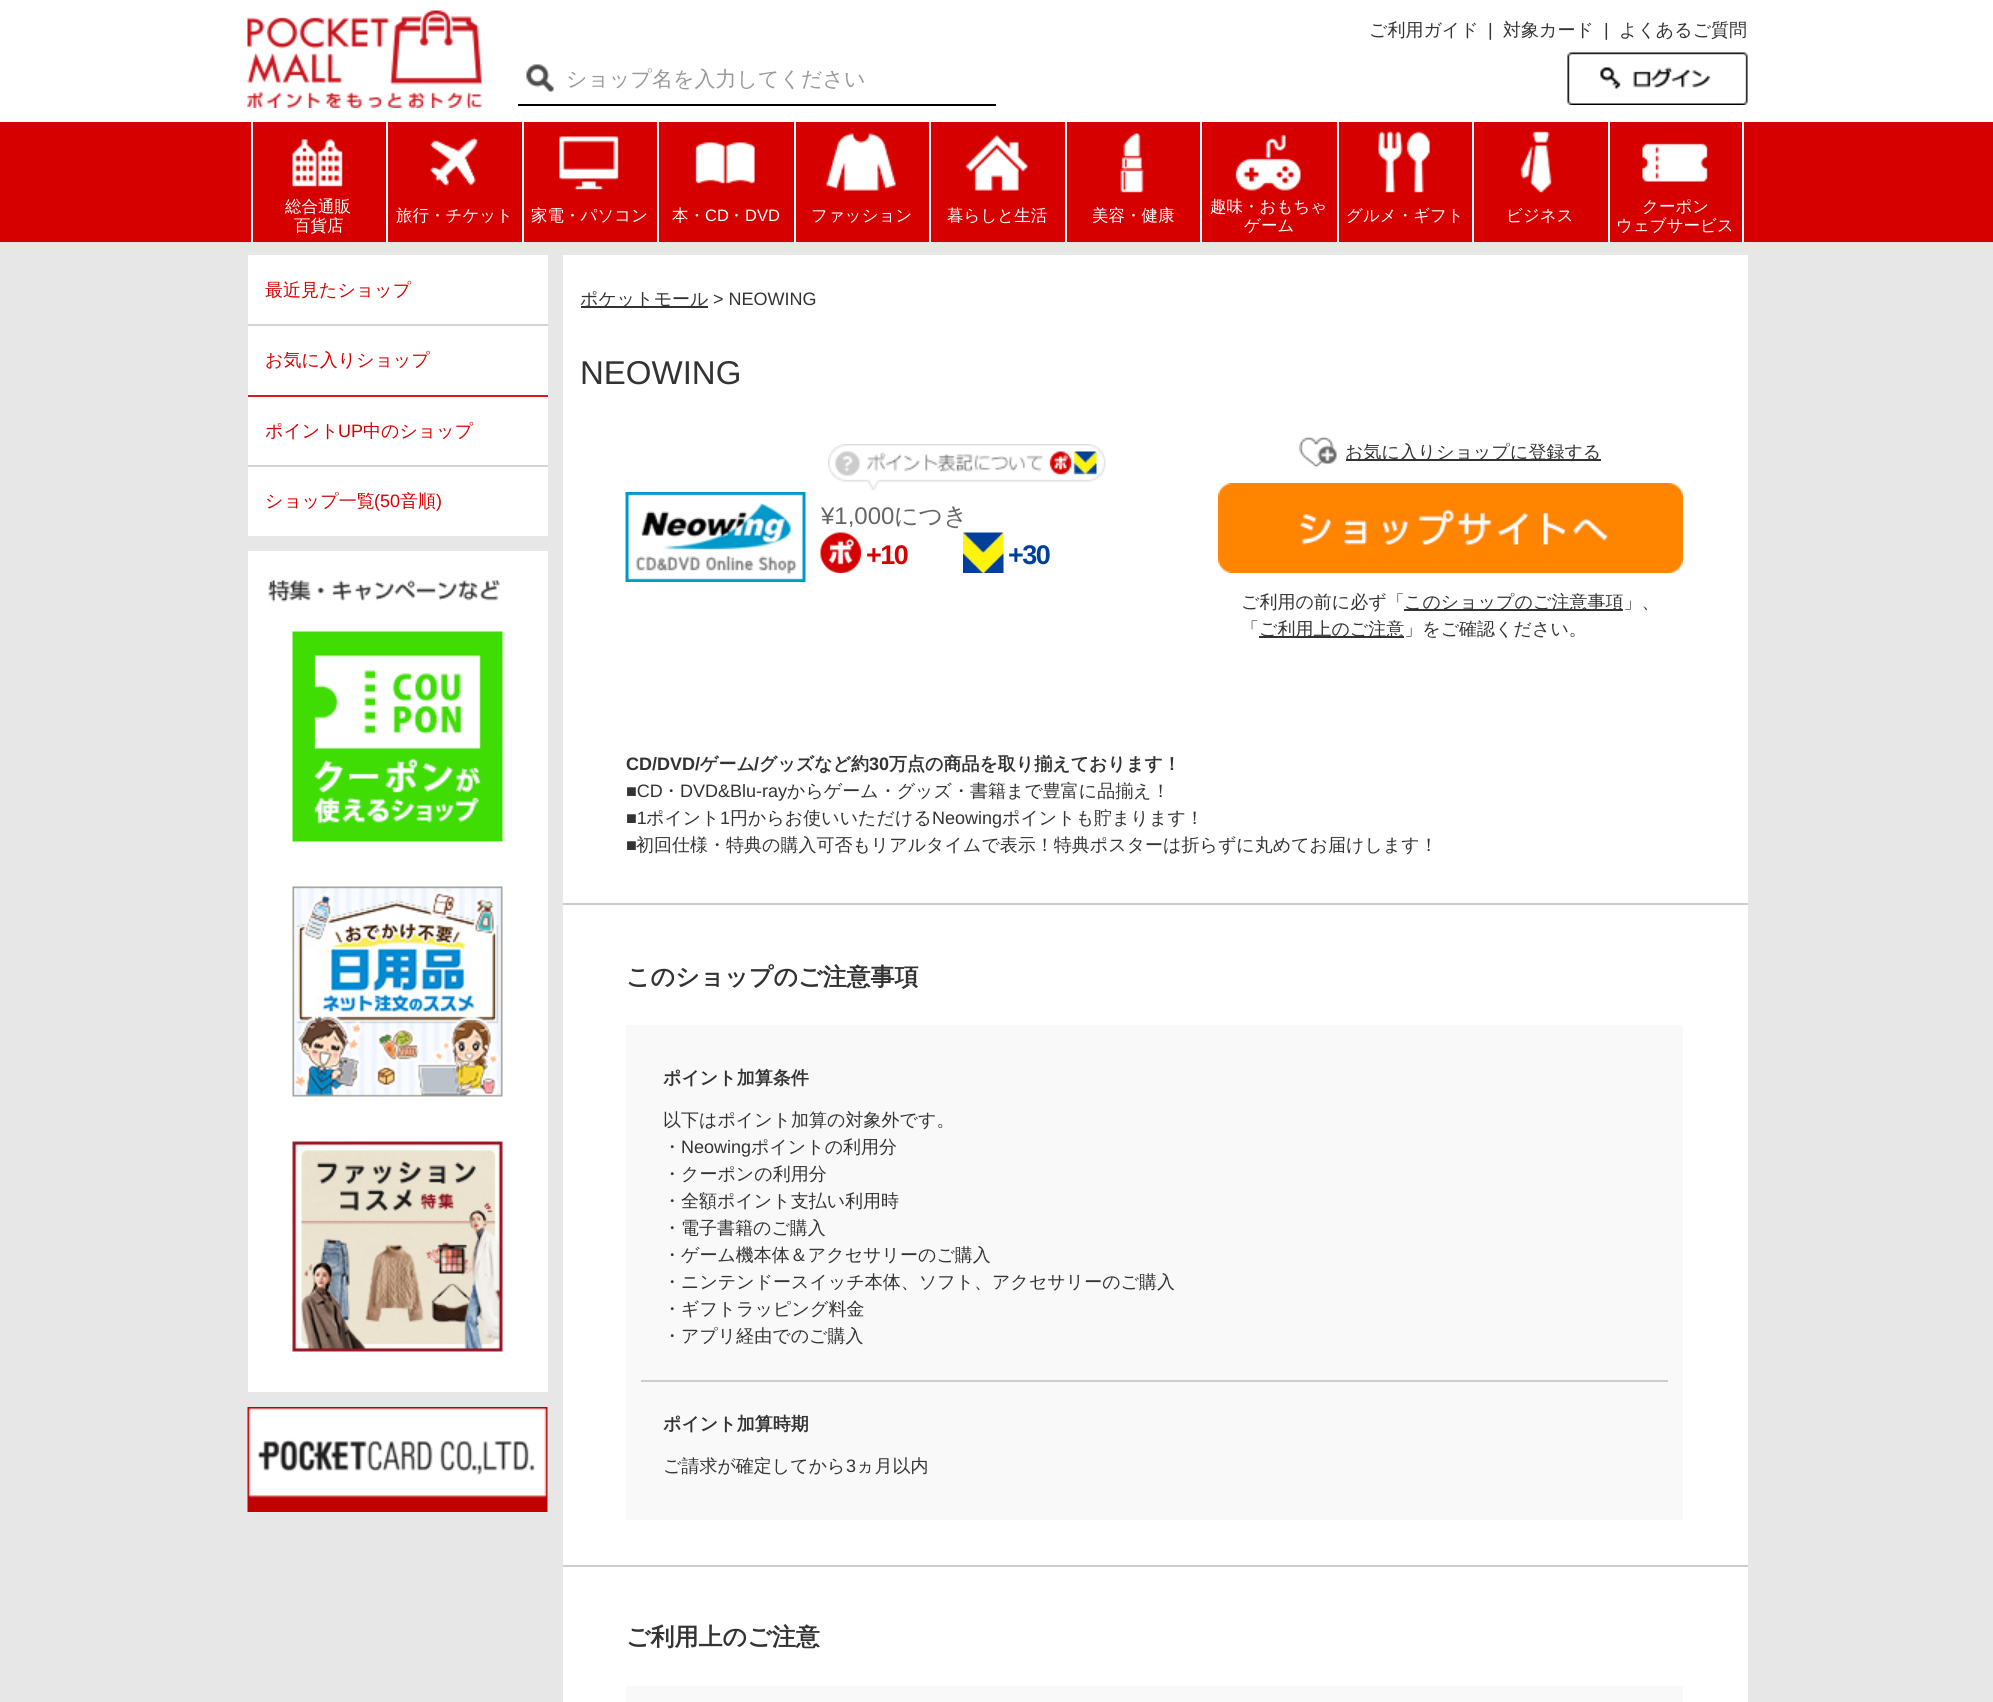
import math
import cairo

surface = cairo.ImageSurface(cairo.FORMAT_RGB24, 1993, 1702)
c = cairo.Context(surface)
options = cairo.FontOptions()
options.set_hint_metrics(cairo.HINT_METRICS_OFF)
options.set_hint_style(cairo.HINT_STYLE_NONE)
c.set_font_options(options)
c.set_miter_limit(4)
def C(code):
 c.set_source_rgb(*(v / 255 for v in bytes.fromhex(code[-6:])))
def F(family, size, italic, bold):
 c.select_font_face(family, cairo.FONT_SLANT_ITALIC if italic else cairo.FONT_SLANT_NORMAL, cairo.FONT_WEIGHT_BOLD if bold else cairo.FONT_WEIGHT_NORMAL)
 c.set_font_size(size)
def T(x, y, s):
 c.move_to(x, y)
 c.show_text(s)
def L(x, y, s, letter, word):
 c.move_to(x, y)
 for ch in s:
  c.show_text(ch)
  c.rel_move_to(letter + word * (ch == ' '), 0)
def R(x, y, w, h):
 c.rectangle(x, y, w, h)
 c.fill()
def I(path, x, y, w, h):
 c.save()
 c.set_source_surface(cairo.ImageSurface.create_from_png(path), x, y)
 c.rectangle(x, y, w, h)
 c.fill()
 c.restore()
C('e7e7e7')
c.paint()
C('ffffff')
R(0,0,1993,122)
I('1.png',247,10,235,98)
F('WenQuanYi Zen Hei Medium',18,0,0)
C('333333')
T(1369,36,'ご利用ガイド')
F('Liberation Sans',18,0,0)
T(1488,36,'|')
F('WenQuanYi Zen Hei Medium',18,0,0)
T(1503,36,'対象カード')
F('Liberation Sans',18,0,0)
T(1604,36,'|')
F('WenQuanYi Zen Hei Medium',18,0,0)
T(1619,36,'よくあるご質問')
I('2.png',526,64,28,28)
C('000000')
R(518,104,478,2)
F('WenQuanYi Zen Hei Medium',21,0,0)
C('999999')
T(566,86,'ショップ名を入力してください')
I('3.png',1567,52,181,53)
C('d60000')
R(0,122,1993,120)
C('ffffff')
R(251,122,2,120)
I('4.png',292,139,51,48)
F('WenQuanYi Zen Hei Medium',16.5,0,0)
T(285,212,'総合通販')
T(294,231,'百貨店')
R(386,122,2,120)
I('5.png',430,137,48,50)
T(396,221,'旅行・チケット')
R(522,122,2,120)
I('6.png',559,136,60,54)
T(531,221,'家電・パソコン')
R(657,122,2,120)
I('7.png',695,142,60,42)
T(672,221,'本・')
F('Liberation Sans',16.5,0,0)
T(705,221,'CD')
F('WenQuanYi Zen Hei Medium',16.5,0,0)
T(728,221,'・')
F('Liberation Sans',16.5,0,0)
T(745,221,'DVD')
R(794,122,2,120)
I('8.png',826,133,70,58)
F('WenQuanYi Zen Hei Medium',16.5,0,0)
T(811,221,'ファッション')
R(929,122,2,120)
I('9.png',965,134,63,57)
T(947,221,'暮らしと生活')
R(1065,122,2,120)
I('10.png',1120,133,24,60)
T(1092,221,'美容・健康')
R(1200,122,2,120)
I('11.png',1235,134,66,57)
T(1210,212,'趣味・おもちゃ')
T(1244,231,'ゲーム')
R(1337,122,2,120)
I('12.png',1378,131,52,62)
T(1346,221,'グルメ・ギフト')
R(1472,122,2,120)
I('13.png',1520,131,32,62)
T(1506,221,'ビジネス')
R(1742,122,2,120)
R(1608,122,2,120)
I('14.png',1642,143,66,39)
T(1642,212,'クーポン')
T(1616,231,'ウェブサービス')
R(248,255,300,69)
F('WenQuanYi Zen Hei Medium',18,0,0)
C('d60000')
T(265,296,'最近見たショップ')
C('ffffff')
R(248,326,300,69)
C('d4d4d4')
R(248,324,300,2)
C('d60000')
T(265,366,'お気に入りショップ')
C('ffffff')
R(248,397,300,68)
C('da1919')
R(248,395,300,2)
C('d60000')
T(265,437,'ポイント')
F('Liberation Sans',18,0,0)
T(338,437,'UP')
F('WenQuanYi Zen Hei Medium',18,0,0)
T(363,437,'中のショップ')
C('ffffff')
R(248,467,300,69)
C('d4d4d4')
R(248,465,300,2)
C('d60000')
T(265,507,'ショップ一覧')
F('Liberation Sans',18,0,0)
T(374,507,'(50')
F('WenQuanYi Zen Hei Medium',18,0,0)
T(400,507,'音順')
F('Liberation Sans',18,0,0)
T(436,507,')')
C('ffffff')
R(248,551,300,841)
I('15.png',268,580,232,22)
I('16.png',292,631,211,211)
I('17.png',292,886,211,211)
I('18.png',292,1141,211,211)
I('19.png',247,1407,301,105)
R(563,255,1185,1447)
C('333333')
R(581,306,127,2)
F('WenQuanYi Zen Hei Medium',18,0,0)
T(580,305,'ポケットモール')
F('Liberation Sans',18,0,0)
T(713,305,'> NEOWING')
F('Liberation Sans',33,0,0)
T(580,384,'NEOWING')
I('20.png',828,444,278,47)
I('21.png',625,492,181,90)
F('Liberation Sans',24,0,0)
C('666666')
T(821,524,'¥1,000')
F('WenQuanYi Zen Hei Medium',24,0,0)
T(894,524,'につき')
I('22.png',820,532,41,41)
F('Liberation Sans',27,0,1)
C('d60000')
L(866,564,'+10',-1.5,0)
I('23.png',963,532,41,41)
C('004098')
L(1008,564,'+30',-1.5,0)
I('24.png',1298,436,39,31)
C('333333')
R(1346,459,255,2)
F('WenQuanYi Zen Hei Medium',18,0,0)
T(1345,458,'お気に入りショップに登録する')
I('25.png',1218,483,465,90)
T(1241,608,'ご利用の前に必ず「')
R(1404,609,219,2)
T(1404,608,'このショップのご注意事項」、')
T(1241,635,'「')
R(1259,636,145,2)
T(1259,635,'ご利用上のご注意」をご確認ください。')
F('Liberation Sans',18,0,1)
T(626,770,'CD/DVD/')
F('WenQuanYi Zen Hei',18,0,1)
T(700,770,'ゲーム')
F('Liberation Sans',18,0,1)
T(754,770,'/')
F('WenQuanYi Zen Hei',18,0,1)
T(759,770,'グッズなど約')
F('Liberation Sans',18,0,1)
T(869,770,'30')
F('WenQuanYi Zen Hei',18,0,1)
T(889,770,'万点の商品を取り揃えております！')
F('Liberation Sans',18,0,0)
T(626,797,'■CD')
F('WenQuanYi Zen Hei Medium',18,0,0)
T(662,797,'・')
F('Liberation Sans',18,0,0)
T(680,797,'DVD&Blu-ray')
F('WenQuanYi Zen Hei Medium',18,0,0)
T(787,797,'からゲーム・グッズ・書籍まで豊富に品揃え！')
F('Liberation Sans',18,0,0)
T(626,824,'■1')
F('WenQuanYi Zen Hei Medium',18,0,0)
T(646,824,'ポイント')
F('Liberation Sans',18,0,0)
T(720,824,'1')
F('WenQuanYi Zen Hei Medium',18,0,0)
T(730,824,'円からお使いいただける')
F('Liberation Sans',18,0,0)
T(932,824,'Neowing')
F('WenQuanYi Zen Hei Medium',18,0,0)
T(1002,824,'ポイントも貯まります！')
F('Liberation Sans',18,0,0)
T(626,851,'■')
F('WenQuanYi Zen Hei Medium',18,0,0)
T(636,851,'初回仕様・特典の購入可否もリアルタイムで表示！特典ポスターは折らずに丸めてお届けします！')
C('cccccc')
R(563,903,1185,2)
F('WenQuanYi Zen Hei',24,0,1)
C('333333')
T(626,985,'このショップのご注意事項')
C('f9f9f9')
R(626,1025,1057,495)
C('cccccc')
R(641,1380,1027,2)
F('WenQuanYi Zen Hei',18,0,1)
C('333333')
T(663,1084,'ポイント加算条件')
F('WenQuanYi Zen Hei Medium',18,0,0)
T(663,1126,'以下はポイント加算の対象外です。')
T(663,1153,'・')
F('Liberation Sans',18,0,0)
T(681,1153,'Neowing')
F('WenQuanYi Zen Hei Medium',18,0,0)
T(751,1153,'ポイントの利用分')
T(663,1180,'・クーポンの利用分')
T(663,1207,'・全額ポイント支払い利用時')
T(663,1234,'・電子書籍のご購入')
T(663,1261,'・ゲーム機本体＆アクセサリーのご購入')
T(663,1288,'・ニンテンドースイッチ本体、ソフト、アクセサリーのご購入')
T(663,1315,'・ギフトラッピング料金')
T(663,1342,'・アプリ経由でのご購入')
F('WenQuanYi Zen Hei',18,0,1)
T(663,1430,'ポイント加算時期')
F('WenQuanYi Zen Hei Medium',18,0,0)
T(663,1472,'ご請求が確定してから')
F('Liberation Sans',18,0,0)
T(846,1472,'3')
F('WenQuanYi Zen Hei Medium',18,0,0)
T(856,1472,'ヵ月以内')
C('cccccc')
R(563,1565,1185,2)
F('WenQuanYi Zen Hei',24,0,1)
C('333333')
T(626,1645,'ご利用上のご注意')
C('f9f9f9')
R(626,1686,1057,16)
surface.write_to_png('o.png')
